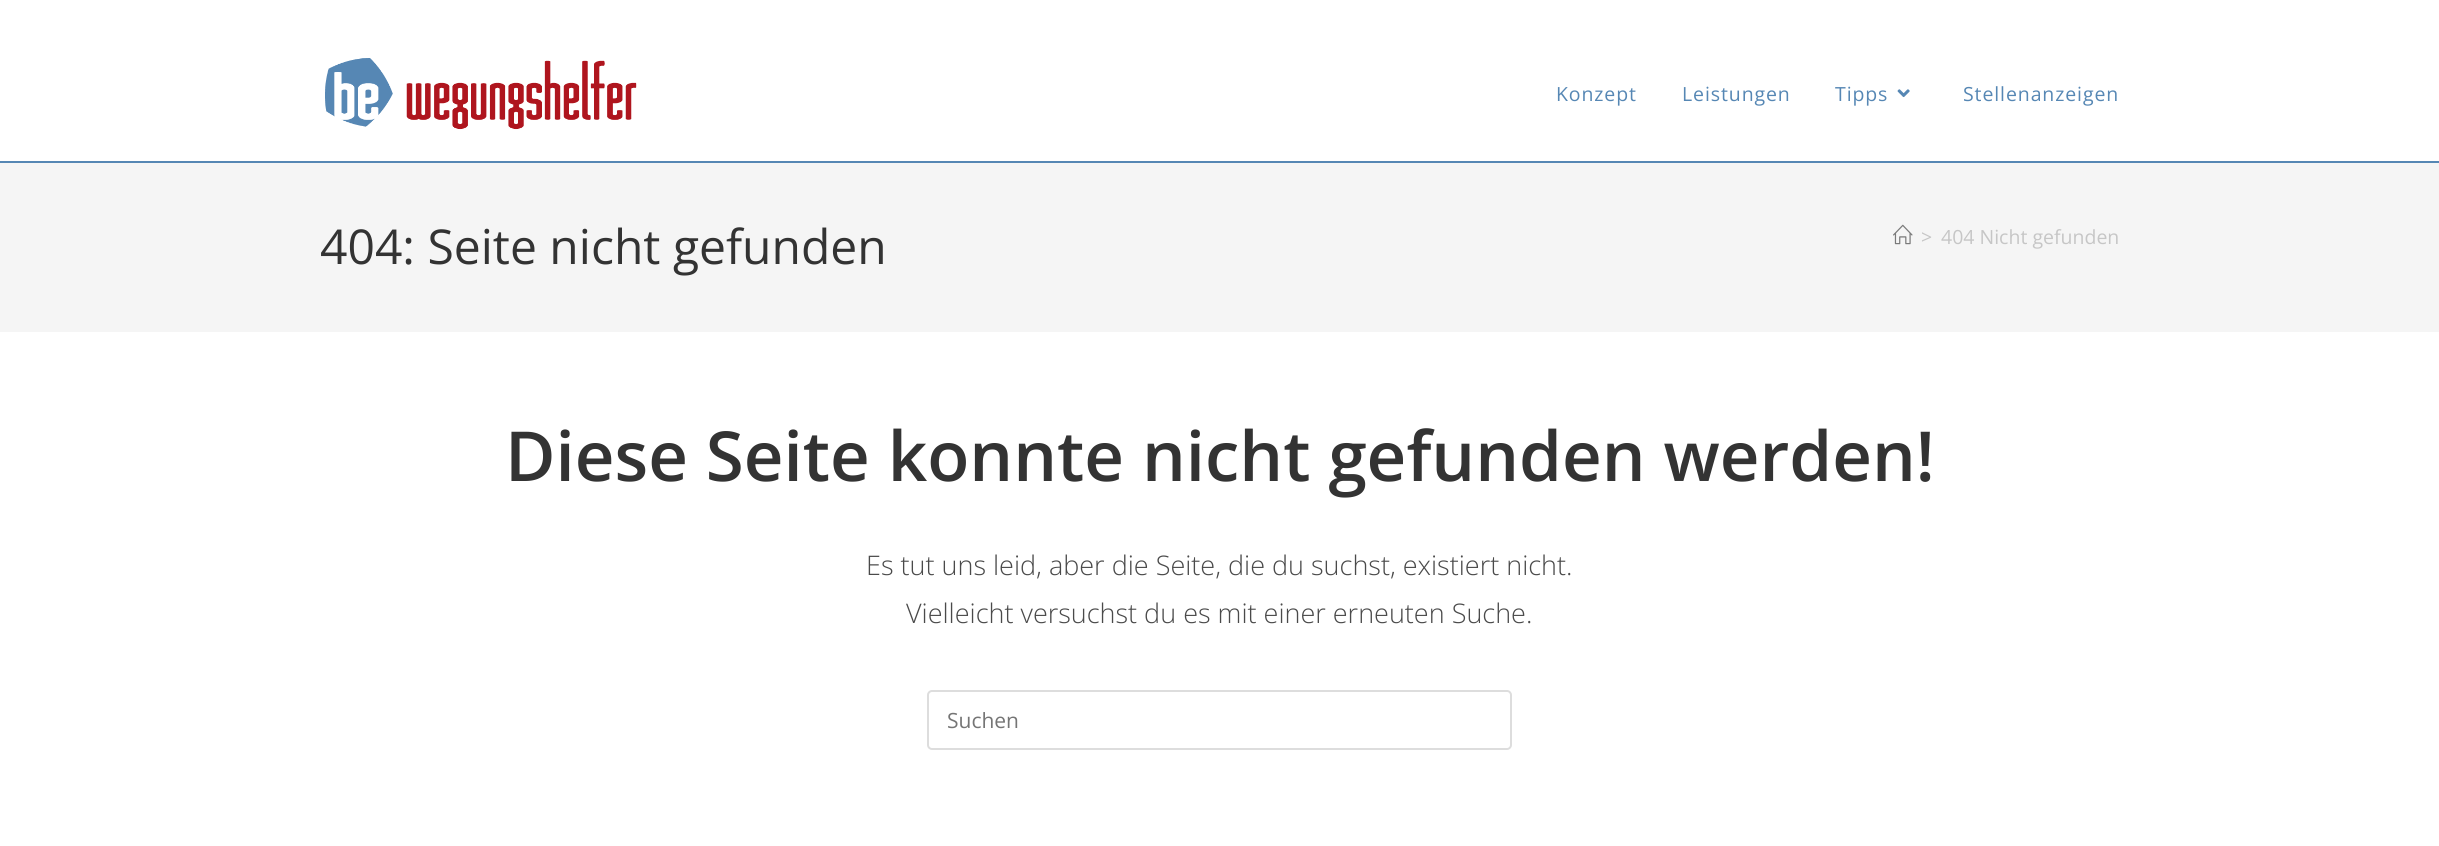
import math
import cairo

surface = cairo.ImageSurface(cairo.FORMAT_RGB24, 2439, 846)
c = cairo.Context(surface)
options = cairo.FontOptions()
options.set_hint_metrics(cairo.HINT_METRICS_OFF)
options.set_hint_style(cairo.HINT_STYLE_NONE)
c.set_font_options(options)
c.set_miter_limit(4)
def C(code):
 c.set_source_rgb(*(v / 255 for v in bytes.fromhex(code[-6:])))
def F(family, size, italic, bold):
 c.select_font_face(family, cairo.FONT_SLANT_ITALIC if italic else cairo.FONT_SLANT_NORMAL, cairo.FONT_WEIGHT_BOLD if bold else cairo.FONT_WEIGHT_NORMAL)
 c.set_font_size(size)
def T(x, y, s):
 c.move_to(x, y)
 c.show_text(s)
def L(x, y, s, letter, word):
 c.move_to(x, y)
 for ch in s:
  c.show_text(ch)
  c.rel_move_to(letter + word * (ch == ' '), 0)
def R(x, y, w, h):
 c.rectangle(x, y, w, h)
 c.fill()
def Q(x, y, w, h, r):
 c.new_sub_path()
 for i, (u, v) in enumerate([(x + w - r, y + h - r), (x + r, y + h - r), (x + r, y + r), (x + w - r, y + r)]):
  c.arc(u, v, r, i * math.pi / 2, (i + 1) * math.pi / 2)
 c.close_path()
def I(path, x, y, w, h):
 c.save()
 c.set_source_surface(cairo.ImageSurface.create_from_png(path), x, y)
 c.rectangle(x, y, w, h)
 c.fill()
 c.restore()
C('ffffff')
c.paint()
C('5687b4')
R(0,161,2439,2)
I('1.png',325,58,312,72)
F('Open Sans',19.5,0,0)
L(1556,101,'Konzept',.9,0)
L(1682,101,'Leistungen',.9,0)
L(1835,101,'Tipps',.9,0)
I('2.png',1897,89,13,9)
L(1963,101,'Stellenanzeigen',.9,0)
C('f5f5f5')
R(0,163,2439,169)
F('Open Sans',48,0,0)
C('333333')
T(320,264,'404: Seite nicht gefunden')
I('3.png',1893,224,20,21)
F('Open Sans',19.5,0,0)
C('c6c6c6')
T(1921,244,'>')
T(1941,244,'404 Nicht gefunden')
F('Open Sans SemiBold',69,0,0)
C('333333')
T(505,481,'Diese Seite konnte nicht gefunden werden!')
F('Open Sans Light',27,0,0)
C('4a4a4a')
T(866,575,'Es tut uns leid, aber die Seite, die du suchst, existiert nicht.')
T(906,623,'Vielleicht versuchst du es mit einer erneuten Suche.')
Q(928,691,583,58,4)
C('dddddd')
c.stroke()
F('Open Sans',21,0,0)
C('757575')
T(947,728,'Suchen')
surface.write_to_png('o.png')
